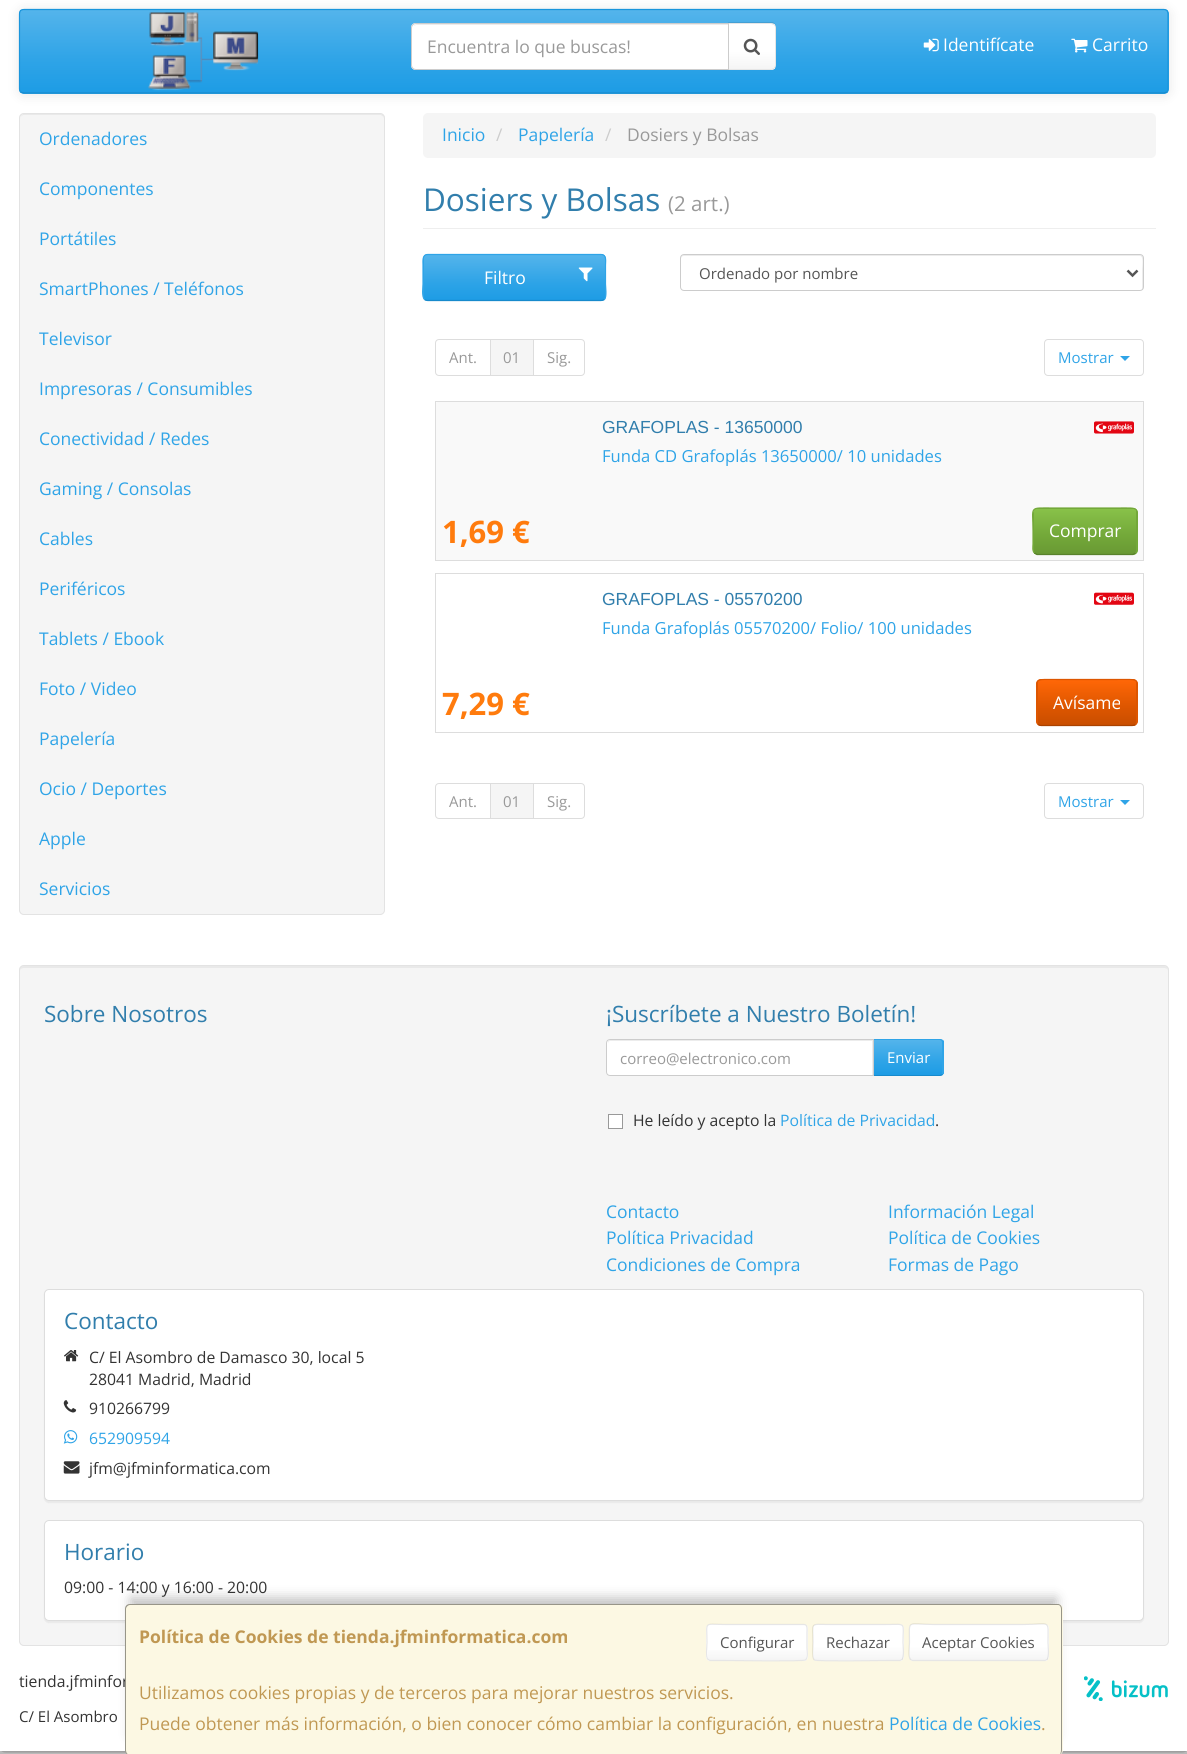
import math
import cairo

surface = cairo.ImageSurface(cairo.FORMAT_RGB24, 1187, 1754)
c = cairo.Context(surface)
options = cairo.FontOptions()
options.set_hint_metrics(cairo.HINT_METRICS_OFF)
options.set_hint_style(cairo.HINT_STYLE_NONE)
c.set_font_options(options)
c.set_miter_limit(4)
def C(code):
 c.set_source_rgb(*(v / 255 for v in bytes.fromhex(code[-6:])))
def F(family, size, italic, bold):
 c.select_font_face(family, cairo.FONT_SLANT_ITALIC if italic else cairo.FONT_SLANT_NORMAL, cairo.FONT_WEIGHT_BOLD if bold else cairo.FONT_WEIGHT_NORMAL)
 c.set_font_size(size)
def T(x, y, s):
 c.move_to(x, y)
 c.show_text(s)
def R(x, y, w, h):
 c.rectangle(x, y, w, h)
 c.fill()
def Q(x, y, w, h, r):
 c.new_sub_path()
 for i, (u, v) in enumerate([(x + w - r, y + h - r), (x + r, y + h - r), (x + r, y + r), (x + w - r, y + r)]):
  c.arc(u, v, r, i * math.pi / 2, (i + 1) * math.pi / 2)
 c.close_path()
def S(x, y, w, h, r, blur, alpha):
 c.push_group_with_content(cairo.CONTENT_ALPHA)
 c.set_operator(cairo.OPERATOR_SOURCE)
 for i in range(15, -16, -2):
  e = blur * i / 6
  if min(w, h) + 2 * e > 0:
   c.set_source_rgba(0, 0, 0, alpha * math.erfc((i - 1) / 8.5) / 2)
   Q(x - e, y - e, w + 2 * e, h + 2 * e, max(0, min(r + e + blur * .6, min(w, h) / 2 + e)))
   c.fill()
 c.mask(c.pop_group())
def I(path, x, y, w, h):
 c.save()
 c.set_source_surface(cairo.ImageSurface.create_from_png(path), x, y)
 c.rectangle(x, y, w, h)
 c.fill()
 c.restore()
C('ffffff')
c.paint()
c.save()
c.rectangle(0,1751,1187,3)
c.clip()
C('000000')
S(0,0,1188,1751,0,9.5,.75)
c.restore()
C('000000')
S(19,10,1150,85,5,6,.1)
C('2fa4e7')
Q(19,9,1150,85,5)
c.fill()
c.save()
Q(19,9,1150,85,5)
c.clip()
gradient = cairo.LinearGradient(594,10,594,93)
gradient.add_color_stop_rgba(0,0.329,0.706,0.922,1)
gradient.add_color_stop_rgba(.6,0.184,0.643,0.906,1)
gradient.add_color_stop_rgba(1,0.114,0.612,0.898,1)
c.set_source(gradient)
R(20,10,1148,83)
c.restore()
c.new_path()
c.move_to(1167,92)
c.line_to(1164,93)
c.line_to(24,93)
c.line_to(20.5,92)
C('178acc')
c.set_line_width(1.2)
c.stroke()
c.new_path()
c.move_to(20.5,92)
c.curve_to(20,91,19.5,90,19.5,89)
c.line_to(19.5,14)
c.curve_to(19.5,12.5,20,11.5,20.5,10.5)
c.curve_to(21.5,10,22.5,9.5,24,9.5)
c.line_to(1164,9.5)
c.curve_to(1165,9.5,1166,10,1167,10.5)
c.curve_to(1167.5,11.5,1168,12.5,1168,14)
c.line_to(1168,89)
c.curve_to(1168,90,1167.5,91,1167,92)
C('1995dc')
c.stroke()
I('1.png',148,12,111,79)
C('ffffff')
c.new_path()
c.move_to(728,23)
c.line_to(771,23)
c.curve_to(774,23,776,25,776,28)
c.line_to(776,65)
c.curve_to(776,68,774,70,771,70)
c.line_to(728,70)
c.close_path()
c.fill()
gradient = cairo.LinearGradient(752,24,752,69)
gradient.add_color_stop_rgba(0,1,1,1,1)
gradient.add_color_stop_rgba(.6,1,1,1,1)
gradient.add_color_stop_rgba(1,0.961,0.961,0.961,1)
c.set_source(gradient)
R(729,24,46,45)
c.set_source_rgba(0,0,0,0.1)
c.new_path()
c.move_to(729,24)
c.line_to(728,22)
c.line_to(773,22)
c.line_to(775,24)
c.line_to(774,25)
c.line_to(771,24)
c.close_path()
c.fill()
C('e6e6e6')
c.new_path()
c.move_to(728,70)
c.line_to(771,70)
c.curve_to(773,70,774,69,775,68)
c.line_to(774,68)
c.curve_to(773,68,772,69,771,69)
c.line_to(729,69)
c.line_to(729,68)
c.close_path()
c.fill()
C('ffffff')
c.new_path()
c.move_to(416,23)
c.line_to(729,23)
c.line_to(729,70)
c.line_to(416,70)
c.curve_to(413,70,411,68,411,65)
c.line_to(411,28)
c.curve_to(411,25,413,23,416,23)
c.close_path()
c.fill()
C('ececec')
c.new_path()
c.move_to(416,25)
c.line_to(728,25)
c.line_to(728,24)
c.line_to(417,24)
c.curve_to(416,24,414,25,414,26)
c.close_path()
c.fill()
c.new_path()
c.move_to(416,23.5)
c.line_to(728.5,23.5)
c.line_to(728.5,69.5)
c.line_to(416,69.5)
c.curve_to(413.5,69.5,411.5,67.5,411.5,65)
c.line_to(411.5,28)
c.curve_to(411.5,25.5,413.5,23.5,416,23.5)
c.close_path()
C('cccccc')
c.set_line_width(1)
c.stroke()
F('Open Sans',17.5,0,0)
C('999999')
T(427,53,'Encuentra lo que buscas!')
c.set_source_rgba(0,0,0,0.1)
c.new_path()
c.move_to(775,24)
c.curve_to(776,25,776,27,776,28)
c.line_to(776,65)
c.curve_to(776,66,776,68,775,68)
c.line_to(774,68)
c.curve_to(775,67,775,66,775,65)
c.line_to(775,28)
c.curve_to(775,27,775,26,774,25)
c.close_path()
c.fill()
I('2.png',743,38,17,17)
I('3.png',923,38,16,14)
C('ffffff')
T(943,51,'Identifícate')
I('4.png',1071,38,17,15)
T(1092,51,'Carrito')
C('f5f5f5')
Q(19,113,366,802,5)
c.fill()
C('e9e9e9')
c.new_path()
c.move_to(24,115)
c.line_to(380,115)
c.curve_to(382,115,384,117,384,119)
c.curve_to(384,116,383,114,380,114)
c.line_to(23,114)
c.line_to(21,116)
c.line_to(20,119)
c.curve_to(20,117,22,115,24,115)
c.close_path()
c.fill()
Q(19.5,113.5,365,801,4.5)
C('e3e3e3')
c.stroke()
C('2fa4e7')
T(39,145,'Ordenadores')
T(39,195,'Componentes')
T(39,245,'Portátiles')
T(39,295,'SmartPhones / Teléfonos')
T(39,345,'Televisor')
T(39,395,'Impresoras / Consumibles')
T(39,445,'Conectividad / Redes')
T(39,495,'Gaming / Consolas')
T(39,545,'Cables')
T(39,595,'Periféricos')
T(39,645,'Tablets / Ebook')
T(39,695,'Foto / Video')
T(39,745,'Papelería')
T(39,795,'Ocio / Deportes')
T(39,845,'Apple')
T(39,895,'Servicios')
C('f5f5f5')
Q(423,113,733,45,5)
c.fill()
C('2fa4e7')
T(442,141,'Inicio')
C('cccccc')
T(496,141,'/')
C('2fa4e7')
T(518,141,'Papelería')
C('cccccc')
T(605,141,'/')
C('999999')
T(627,141,'Dosiers y Bolsas')
C('eeeeee')
R(423,228,733,1)
F('Open Sans',31.5,0,0)
C('317eac')
T(423,211,'Dosiers y Bolsas')
F('Open Sans',20.5,0,0)
C('999999')
T(668,211,'(2 art.)')
C('2fa4e7')
Q(423,254,183,47,5)
c.fill()
c.save()
Q(423,254,183,47,5)
c.clip()
gradient = cairo.LinearGradient(514,255,514,300)
gradient.add_color_stop_rgba(0,0.329,0.706,0.922,1)
gradient.add_color_stop_rgba(.6,0.184,0.643,0.906,1)
gradient.add_color_stop_rgba(1,0.114,0.612,0.898,1)
c.set_source(gradient)
R(424,255,181,45)
c.restore()
c.new_path()
c.move_to(604.5,299.5)
c.curve_to(603.5,300,602.5,300.5,601,300.5)
c.line_to(427.5,300.5)
c.curve_to(426.5,300.5,425,300,424.5,299.5)
C('178acc')
c.set_line_width(1.2)
c.stroke()
c.new_path()
c.move_to(424.5,299.5)
c.curve_to(421.5,296.5,423,287,423,284)
c.line_to(423,265)
c.curve_to(423,261.5,422,254.5,427.5,254.5)
c.line_to(601,254.5)
c.curve_to(607,254.5,605.5,261.5,605.5,265)
c.line_to(605.5,284)
c.curve_to(605.5,287,607,296.5,604.5,299.5)
C('2fa4e7')
c.stroke()
F('Open Sans',17.5,0,0)
C('ffffff')
T(484,284,'Filtro')
I('5.png',578,267,15,15)
C('ececec')
c.new_path()
c.move_to(684,256)
c.line_to(1140,256)
c.curve_to(1144,256,1142,268,1142,269)
c.line_to(1142,290)
c.curve_to(1143,289,1143,288,1143,288)
c.line_to(1143,258)
c.curve_to(1143,256,1142,255,1140,255)
c.line_to(684,255)
c.curve_to(682,255,681,256,681,258)
c.line_to(681,259)
c.curve_to(681,257,682,256,684,256)
c.close_path()
c.fill()
Q(680.5,254.5,463,36,3.5)
C('cccccc')
c.set_line_width(1)
c.stroke()
c.new_path()
c.move_to(1127.5,270.5)
c.line_to(1132.5,275.5)
c.line_to(1137.5,270.5)
C('555555')
c.set_line_width(2.5)
c.stroke()
F('Open Sans',15,0,0)
T(699,279,'Ordenado por nombre')
c.new_path()
c.move_to(439,339.5)
c.line_to(490.5,339.5)
c.line_to(490.5,375.5)
c.line_to(439,375.5)
c.curve_to(437,375.5,435.5,374,435.5,372)
c.line_to(435.5,343)
c.curve_to(435.5,341,437,339.5,439,339.5)
c.close_path()
C('dddddd')
c.set_line_width(1)
c.stroke()
C('999999')
T(449,363,'Ant.')
c.new_path()
c.move_to(533.5,339.5)
c.line_to(581,339.5)
c.curve_to(583,339.5,584.5,341,584.5,343)
c.line_to(584.5,372)
c.curve_to(584.5,374,583,375.5,581,375.5)
c.line_to(533.5,375.5)
c.close_path()
C('dddddd')
c.stroke()
C('f5f5f5')
c.rectangle(490.5,339.5,43,36)
c.fill_preserve()
C('dddddd')
c.stroke()
C('999999')
T(503,363,'01')
T(547,363,'Sig.')
Q(1044.5,339.5,99,36,3.5)
C('dddddd')
c.stroke()
C('2fa4e7')
T(1058,363,'Mostrar')
c.new_path()
c.move_to(1120,356)
c.line_to(1130,356)
c.line_to(1125,361)
c.close_path()
c.fill()
C('f9f9f9')
c.new_path()
c.move_to(440,401)
c.line_to(1139,401)
c.curve_to(1142,401,1144,403,1144,406)
c.line_to(1144,561)
c.line_to(435,561)
c.line_to(435,406)
c.curve_to(435,403,437,401,440,401)
c.close_path()
c.fill()
c.rectangle(435.5,401.5,708,159)
C('dddddd')
c.stroke()
F('Liberation Sans',17.5,0,0)
C('317eac')
T(602,433,'GRAFOPLAS - 13650000')
F('Open Sans',16.6,0,0)
C('2fa4e7')
T(602,462,'Funda CD Grafoplás 13650000/ 10 unidades')
F('Open Sans',31,0,1)
C('ff7b0d')
T(442,543,'1,69 €')
C('73a839')
Q(1033,508,105,47,5)
c.fill()
gradient = cairo.LinearGradient(1085,509,1085,554)
gradient.add_color_stop_rgba(0,0.533,0.757,0.286,1)
gradient.add_color_stop_rgba(.6,0.451,0.659,0.224,1)
gradient.add_color_stop_rgba(1,0.412,0.6,0.204,1)
c.set_source(gradient)
R(1034,509,102,45)
c.new_path()
c.move_to(1135.5,553)
c.line_to(1133,554.5)
c.line_to(1037,554.5)
c.line_to(1034.5,553)
C('59822c')
c.set_line_width(1.2)
c.stroke()
c.new_path()
c.move_to(1034.5,553)
c.curve_to(1032,551,1033,546,1033,544)
c.line_to(1033,531)
c.curve_to(1033,505.5,1028,508,1053.5,508)
c.line_to(1116.5,508)
c.curve_to(1142,508,1137,505.5,1137,531)
c.line_to(1137,544)
c.curve_to(1137,546,1138,551,1135.5,553)
C('73a839')
c.stroke()
F('Open Sans',17.5,0,0)
C('ffffff')
T(1049,537,'Comprar')
I('6.png',1094,421,40,13)
c.rectangle(435.5,573.5,708,159)
C('dddddd')
c.set_line_width(1)
c.stroke()
F('Liberation Sans',17.5,0,0)
C('317eac')
T(602,605,'GRAFOPLAS - 05570200')
F('Open Sans',16.6,0,0)
C('2fa4e7')
T(602,634,'Funda Grafoplás 05570200/ Folio/ 100 unidades')
F('Open Sans',31,0,1)
C('ff7b0d')
T(442,715,'7,29 €')
C('dd5600')
Q(1036,679,102,47,5)
c.fill()
gradient = cairo.LinearGradient(1087,680,1087,725)
gradient.add_color_stop_rgba(0,1,0.404,0.027,1)
gradient.add_color_stop_rgba(.6,0.867,0.337,0,1)
gradient.add_color_stop_rgba(1,0.788,0.306,0,1)
c.set_source(gradient)
R(1038,680,98,45)
c.new_path()
c.move_to(1135.5,724.5)
c.curve_to(1135,725,1133.5,725.5,1132.5,725.5)
c.line_to(1041,725.5)
c.curve_to(1040,725.5,1039,725,1038,724.5)
C('aa4200')
c.set_line_width(1.2)
c.stroke()
c.new_path()
c.move_to(1038,724.5)
c.curve_to(1036,722,1037,717.5,1037,715)
c.line_to(1037,702.5)
c.curve_to(1037,677,1032,679.5,1056.5,679.5)
c.line_to(1117.5,679.5)
c.curve_to(1142,679.5,1137,677,1137,702.5)
c.line_to(1137,715)
c.curve_to(1137,717.5,1138,722,1135.5,724.5)
C('dd5600')
c.stroke()
F('Open Sans',17.5,0,0)
C('ffffff')
T(1053,709,'Avísame')
I('7.png',1094,592,40,13)
c.new_path()
c.move_to(439,783.5)
c.line_to(490.5,783.5)
c.line_to(490.5,818.5)
c.line_to(439,818.5)
c.curve_to(437,818.5,435.5,817,435.5,815)
c.line_to(435.5,787)
c.curve_to(435.5,785,437,783.5,439,783.5)
c.close_path()
C('dddddd')
c.set_line_width(1)
c.stroke()
F('Open Sans',15,0,0)
C('999999')
T(449,807,'Ant.')
c.new_path()
c.move_to(533.5,783.5)
c.line_to(581,783.5)
c.curve_to(583,783.5,584.5,785,584.5,787)
c.line_to(584.5,815)
c.curve_to(584.5,817,583,818.5,581,818.5)
c.line_to(533.5,818.5)
c.close_path()
C('dddddd')
c.stroke()
C('f5f5f5')
c.rectangle(490.5,783.5,43,35)
c.fill_preserve()
C('dddddd')
c.stroke()
C('999999')
T(503,807,'01')
T(547,807,'Sig.')
Q(1044.5,783.5,99,35,3.5)
C('dddddd')
c.stroke()
C('2fa4e7')
T(1058,807,'Mostrar')
c.new_path()
c.move_to(1120,800)
c.line_to(1130,800)
c.line_to(1125,805)
c.close_path()
c.fill()
C('f5f5f5')
Q(19,965,1150,681,5)
c.fill()
C('e9e9e9')
c.new_path()
c.move_to(24,968)
c.line_to(1164,968)
c.curve_to(1166,968,1168,969,1168,971)
c.curve_to(1168,968,1167,966,1164,966)
c.line_to(24,966)
c.curve_to(21,966,20,968,20,971)
c.curve_to(20,969,22,968,24,968)
c.close_path()
c.fill()
Q(19.5,965.5,1149,680,4.5)
C('e3e3e3')
c.stroke()
F('Open Sans',22.5,0,0)
C('317eac')
T(44,1022,'Sobre Nosotros')
T(606,1022,'¡Suscríbete a Nuestro Boletín!')
C('2fa4e7')
c.new_path()
c.move_to(873,1039)
c.line_to(940,1039)
c.curve_to(942,1039,944,1041,944,1043)
c.line_to(944,1072)
c.curve_to(944,1074,942,1076,940,1076)
c.line_to(873,1076)
c.close_path()
c.fill()
gradient = cairo.LinearGradient(908,1040,908,1075)
gradient.add_color_stop_rgba(0,0.329,0.706,0.922,1)
gradient.add_color_stop_rgba(.6,0.184,0.643,0.906,1)
gradient.add_color_stop_rgba(1,0.114,0.612,0.898,1)
c.set_source(gradient)
R(874,1040,69,35)
C('2fa4e7')
c.new_path()
c.move_to(874,1040)
c.line_to(940,1040)
c.line_to(942,1041)
c.line_to(943,1040)
c.line_to(940,1039)
c.line_to(873,1039)
c.close_path()
c.fill()
c.new_path()
c.move_to(943,1040)
c.line_to(944,1041)
c.line_to(944,1073.5)
c.line_to(942.5,1075)
c.line_to(941.5,1074)
c.curve_to(942.5,1072.5,942,1068,942,1067)
c.line_to(942,1042)
c.line_to(941.5,1041)
c.close_path()
c.fill()
C('178acc')
c.new_path()
c.move_to(943,1075)
c.line_to(940,1076)
c.line_to(873,1076)
c.line_to(874,1075)
c.line_to(940,1075)
c.line_to(942,1074)
c.close_path()
c.fill()
C('ffffff')
c.new_path()
c.move_to(610,1039)
c.line_to(874,1039)
c.line_to(874,1076)
c.line_to(610,1076)
c.curve_to(608,1076,606,1074,606,1072)
c.line_to(606,1043)
c.curve_to(606,1041,608,1039,610,1039)
c.close_path()
c.fill()
C('ececec')
c.new_path()
c.move_to(610,1041)
c.line_to(872,1041)
c.line_to(872,1075)
c.line_to(873,1075)
c.line_to(873,1040)
c.line_to(610,1040)
c.curve_to(609,1040,608,1041,608,1042)
c.line_to(608,1044)
c.curve_to(608,1042,609,1041,610,1041)
c.close_path()
c.fill()
c.new_path()
c.move_to(610,1039.5)
c.line_to(873.5,1039.5)
c.line_to(873.5,1075.5)
c.line_to(610,1075.5)
c.curve_to(608,1075.5,606.5,1074,606.5,1072)
c.line_to(606.5,1043)
c.curve_to(606.5,1041,608,1039.5,610,1039.5)
c.close_path()
C('cccccc')
c.stroke()
F('Open Sans',15,0,0)
C('999999')
T(620,1064,'correo@electronico.com')
C('ffffff')
T(887,1063,'Enviar')
c.rectangle(608.5,1114.5,14,14)
c.fill_preserve()
C('999999')
c.stroke()
F('Open Sans',15.75,0,0)
C('333333')
T(633,1126,'He leído y acepto la')
C('2fa4e7')
T(780,1126,'Política de Privacidad')
C('333333')
T(935,1126,'.')
F('Open Sans',17.5,0,0)
C('2fa4e7')
T(606,1218,'Contacto')
T(888,1218,'Información Legal')
T(606,1244,'Política Privacidad')
T(888,1244,'Política de Cookies')
T(606,1271,'Condiciones de Compra')
T(888,1271,'Formas de Pago')
C('000000')
S(44,1290,1100,213,5,.5,.05)
C('ffffff')
Q(44.5,1289.5,1099,211,4.5)
c.fill_preserve()
C('dddddd')
c.stroke()
F('Open Sans',22.5,0,0)
C('317eac')
T(64,1329,'Contacto')
I('8.png',64,1350,15,12)
F('Open Sans',15.75,0,0)
C('333333')
T(89,1363,'C/ El Asombro de Damasco 30, local 5')
T(89,1385,'28041 Madrid, Madrid')
I('9.png',63,1400,14,13)
T(89,1414,'910266799')
I('10.png',63,1430,15,14)
C('2fa4e7')
T(89,1444,'652909594')
I('11.png',63,1461,17,13)
C('333333')
T(89,1474,'jfm@jfminformatica.com')
C('000000')
S(44,1521,1100,102,5,.5,.05)
C('ffffff')
Q(44.5,1520.5,1099,100,4.5)
c.fill_preserve()
C('dddddd')
c.stroke()
F('Open Sans',22.5,0,0)
C('317eac')
T(64,1560,'Horario')
F('Open Sans',15.75,0,0)
C('333333')
T(64,1593,'09:00 - 14:00 y 16:00 - 20:00')
T(19,1687,'tienda.jfminfor')
I('12.png',1084,1676,84,25)
F('Open Sans',15,0,0)
T(19,1722,'C/ El Asombro')
C('000000')
S(131,1598,925,138,0,6,.25)
C('fcf8e3')
Q(125,1604,938,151,5)
c.fill()
c.set_source_rgba(0,0,0,0.4)
c.set_fill_rule(cairo.FILL_RULE_EVEN_ODD)
c.new_path()
c.move_to(130,1604)
c.line_to(1058,1604)
c.curve_to(1060,1604,1062,1606,1062,1609)
c.line_to(1062,1750)
c.curve_to(1062,1753,1060,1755,1058,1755)
c.line_to(130,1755)
c.curve_to(127,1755,125,1753,125,1750)
c.line_to(125,1609)
c.curve_to(125,1606,127,1604,130,1604)
c.close_path()
c.move_to(130,1605)
c.line_to(1058,1605)
c.curve_to(1060,1605,1061,1607,1061,1609)
c.line_to(1061,1750)
c.curve_to(1061,1753,1060,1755,1058,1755)
c.line_to(130,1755)
c.curve_to(128,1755,126,1753,126,1750)
c.line_to(126,1609)
c.curve_to(126,1607,128,1605,130,1605)
c.close_path()
c.fill()
F('Open Sans',17.5,0,1)
C('c09853')
T(139,1643,'Política de Cookies de tienda.jfminformatica.com')
C('ffffff')
Q(706,1624,102,37,4)
c.fill()
gradient = cairo.LinearGradient(757,1625,757,1660)
gradient.add_color_stop_rgba(0,1,1,1,1)
gradient.add_color_stop_rgba(.6,1,1,1,1)
gradient.add_color_stop_rgba(1,0.961,0.961,0.961,1)
c.set_source(gradient)
R(708,1650,98,10)
c.new_path()
c.move_to(806,1659.5)
c.line_to(805.5,1660)
c.curve_to(803.5,1661.5,734,1660.5,725.5,1660.5)
c.line_to(710,1660.5)
c.line_to(708,1659.5)
C('e6e6e6')
c.set_line_width(1.2)
c.stroke()
c.new_path()
c.move_to(708,1659.5)
c.curve_to(705.5,1657.5,707,1645.5,707,1642.5)
c.curve_to(707,1620.5,703,1624.5,725.5,1624.5)
c.line_to(804,1624.5)
c.curve_to(808,1624.5,807,1630,807,1632.5)
c.line_to(807,1647.5)
c.curve_to(807,1650,808,1657.5,806,1659.5)
c.set_source_rgba(0,0,0,0.1)
c.stroke()
F('Open Sans',15,0,0)
C('555555')
T(720,1648,'Configurar')
C('ffffff')
Q(813,1624,91,37,4)
c.fill()
c.save()
c.set_fill_rule(cairo.FILL_RULE_WINDING)
Q(813,1624,91,37,4)
c.clip()
gradient = cairo.LinearGradient(858,1625,858,1660)
gradient.add_color_stop_rgba(0,1,1,1,1)
gradient.add_color_stop_rgba(.6,1,1,1,1)
gradient.add_color_stop_rgba(1,0.961,0.961,0.961,1)
c.set_source(gradient)
R(814,1625,89,35)
c.restore()
c.new_path()
c.move_to(902,1659.5)
c.line_to(900,1660.5)
c.line_to(886,1660.5)
c.curve_to(878,1660.5,816.5,1661.5,814.5,1660)
c.line_to(814,1659.5)
C('e6e6e6')
c.stroke()
c.new_path()
c.move_to(814,1659.5)
c.curve_to(812,1657.5,813,1645.5,813,1642.5)
c.curve_to(813,1621.5,809,1624.5,830,1624.5)
c.line_to(886,1624.5)
c.curve_to(907,1624.5,903,1621.5,903,1642.5)
c.curve_to(903,1645.5,904.5,1657.5,902,1659.5)
c.set_source_rgba(0,0,0,0.1)
c.stroke()
C('555555')
T(826,1648,'Rechazar')
C('ffffff')
Q(909,1624,140,37,4)
c.fill()
c.save()
c.set_fill_rule(cairo.FILL_RULE_WINDING)
Q(909,1624,140,37,4)
c.clip()
gradient = cairo.LinearGradient(979,1625,979,1660)
gradient.add_color_stop_rgba(0,1,1,1,1)
gradient.add_color_stop_rgba(.6,1,1,1,1)
gradient.add_color_stop_rgba(1,0.961,0.961,0.961,1)
c.set_source(gradient)
R(910,1625,138,35)
c.restore()
c.new_path()
c.move_to(1047,1659.5)
c.line_to(1045,1660.5)
c.line_to(912.5,1660.5)
c.line_to(910.5,1659.5)
C('e6e6e6')
c.stroke()
c.new_path()
c.move_to(910.5,1659.5)
c.curve_to(908,1657.5,909.5,1645.5,909.5,1642.5)
c.curve_to(909.5,1618.5,906,1624.5,934.5,1624.5)
c.line_to(1023,1624.5)
c.curve_to(1051.5,1624.5,1048,1618.5,1048,1642.5)
c.curve_to(1048,1645.5,1049.5,1657.5,1047,1659.5)
c.set_source_rgba(0,0,0,0.1)
c.stroke()
C('555555')
T(922,1648,'Aceptar Cookies')
F('Open Sans',17.5,0,0)
C('c09853')
T(139,1699,'Utilizamos cookies propias y de terceros para mejorar nuestros servicios.')
T(139,1730,'Puede obtener más información, o bien conocer cómo cambiar la configuración, en nuestra')
C('2fa4e7')
T(889,1730,'Política de Cookies')
C('c09853')
T(1041,1730,'.')
surface.write_to_png('o.png')
